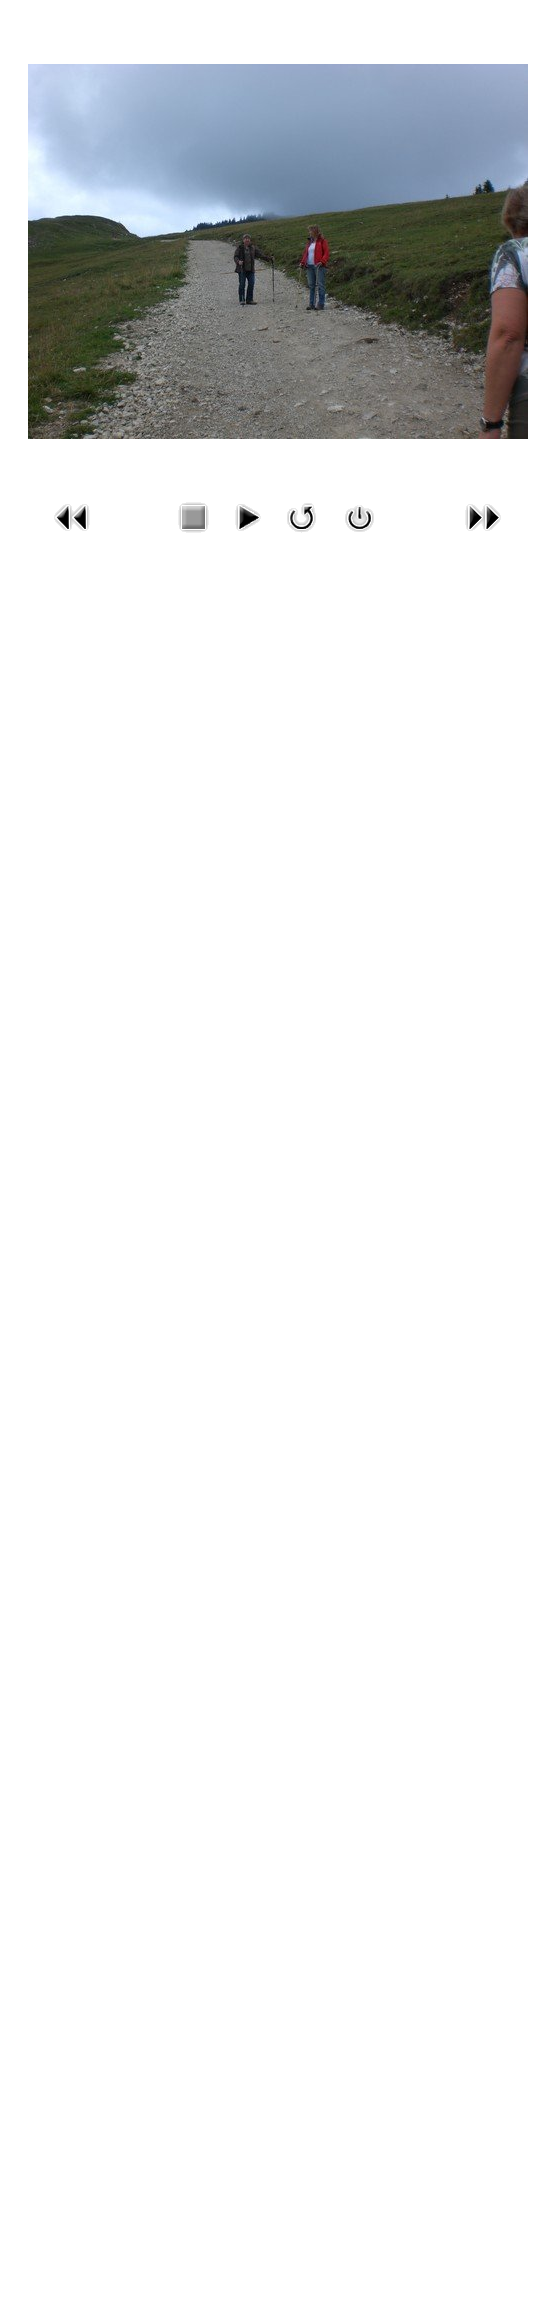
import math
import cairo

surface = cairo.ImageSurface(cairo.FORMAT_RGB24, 555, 2314)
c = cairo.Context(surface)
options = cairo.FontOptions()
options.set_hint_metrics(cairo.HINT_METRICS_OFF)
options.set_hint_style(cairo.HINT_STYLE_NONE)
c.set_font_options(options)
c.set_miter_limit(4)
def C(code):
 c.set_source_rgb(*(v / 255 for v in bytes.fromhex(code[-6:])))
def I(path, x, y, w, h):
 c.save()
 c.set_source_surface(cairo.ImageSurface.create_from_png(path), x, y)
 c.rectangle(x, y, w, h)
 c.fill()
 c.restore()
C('ffffff')
c.paint()
I('1.png',28,64,500,375)
I('2.png',54,504,36,27)
I('3.png',178,502,31,31)
I('4.png',235,504,26,27)
I('5.png',287,503,29,30)
I('6.png',345,505,29,27)
I('7.png',465,504,36,27)
surface.write_to_png('o.png')
